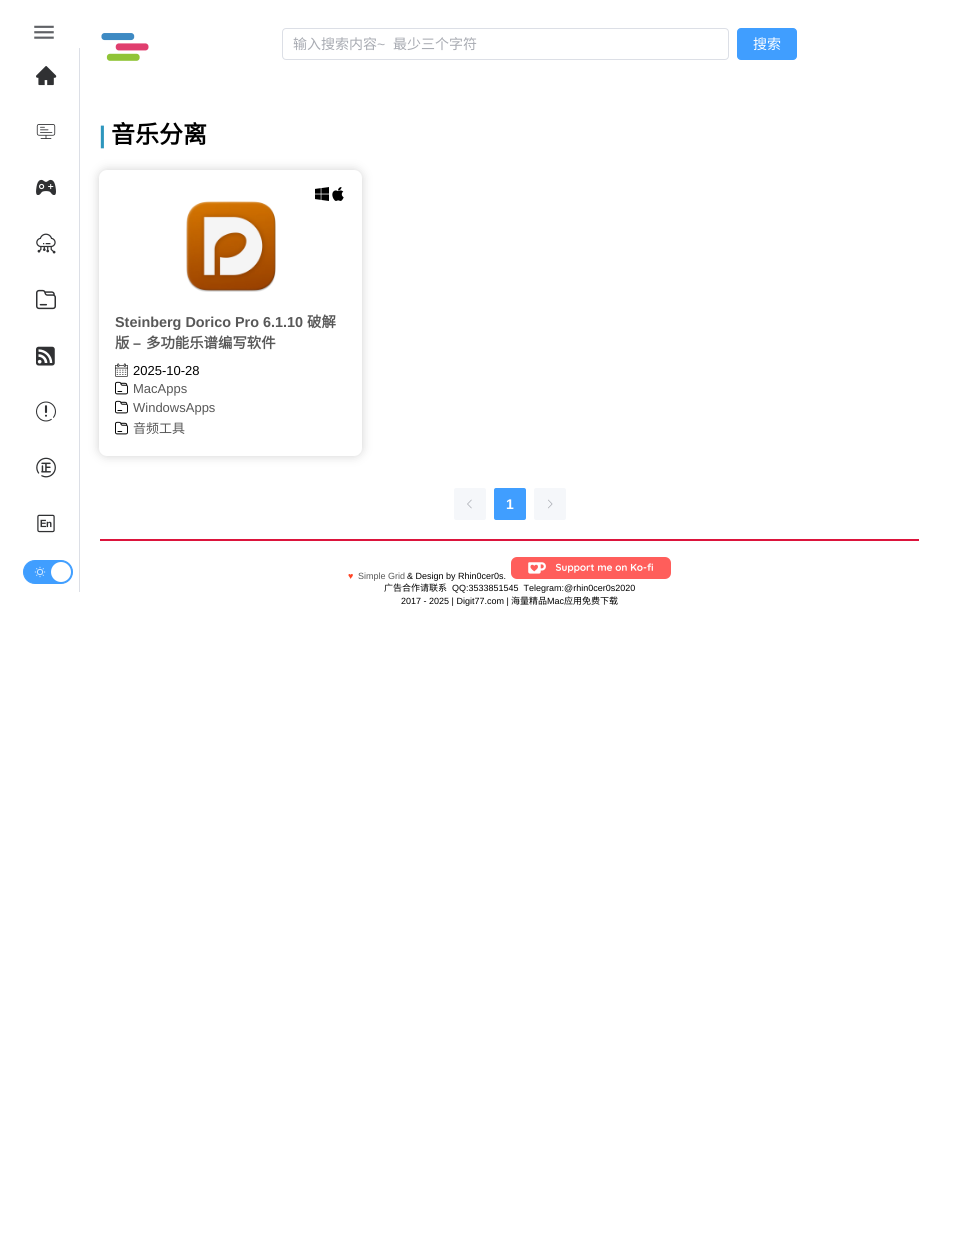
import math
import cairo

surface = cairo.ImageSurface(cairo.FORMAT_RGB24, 955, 1251)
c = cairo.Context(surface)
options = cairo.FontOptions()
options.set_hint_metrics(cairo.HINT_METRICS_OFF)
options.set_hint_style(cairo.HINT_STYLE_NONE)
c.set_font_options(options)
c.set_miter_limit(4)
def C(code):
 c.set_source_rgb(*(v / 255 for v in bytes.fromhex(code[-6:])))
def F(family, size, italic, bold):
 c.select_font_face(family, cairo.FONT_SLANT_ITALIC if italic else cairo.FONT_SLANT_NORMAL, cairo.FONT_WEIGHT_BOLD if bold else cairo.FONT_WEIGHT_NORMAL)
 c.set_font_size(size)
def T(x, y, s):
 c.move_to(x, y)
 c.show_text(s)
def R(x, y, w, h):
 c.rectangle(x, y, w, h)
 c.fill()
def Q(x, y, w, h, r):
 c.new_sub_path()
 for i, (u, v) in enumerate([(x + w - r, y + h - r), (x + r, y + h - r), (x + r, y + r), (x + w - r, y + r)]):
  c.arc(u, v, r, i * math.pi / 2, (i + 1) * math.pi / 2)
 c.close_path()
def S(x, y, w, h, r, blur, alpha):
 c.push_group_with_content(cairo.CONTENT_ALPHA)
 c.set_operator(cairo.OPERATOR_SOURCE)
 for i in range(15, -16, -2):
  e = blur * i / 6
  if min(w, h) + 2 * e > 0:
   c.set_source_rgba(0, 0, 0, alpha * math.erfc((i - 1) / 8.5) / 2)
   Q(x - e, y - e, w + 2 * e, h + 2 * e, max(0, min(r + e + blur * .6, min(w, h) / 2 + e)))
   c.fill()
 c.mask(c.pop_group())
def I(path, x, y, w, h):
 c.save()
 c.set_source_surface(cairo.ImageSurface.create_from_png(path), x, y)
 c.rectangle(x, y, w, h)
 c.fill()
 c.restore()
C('ffffff')
c.paint()
I('1.png',34,25,20,14)
C('dcdfe6')
R(79,48,1,544)
I('2.png',36,66,21,20)
I('3.png',36,124,20,15)
I('4.png',36,179,20,16)
I('5.png',36,233,20,21)
I('6.png',36,289,20,21)
I('7.png',36,346,19,20)
I('8.png',36,401,20,21)
I('9.png',36,457,20,21)
I('10.png',37,514,18,19)
C('409eff')
Q(23.5,560.5,49,23,11.5)
c.fill_preserve()
c.set_line_width(1)
c.stroke()
I('11.png',34,566,12,12)
C('ffffff')
c.arc(61,572,10,0,2 * math.pi)
c.fill()
I('12.png',101,33,48,28)
Q(282.5,28.5,446,31,3.5)
C('dcdfe6')
c.stroke()
F('Noto Sans CJK SC',14,0,0)
C('a8abb2')
T(293,49,'输入搜索内容')
F('Liberation Sans',14,0,0)
T(377,49,'~')
F('Noto Sans CJK SC',14,0,0)
T(393,49,'最少三个字符')
C('409eff')
Q(737.5,28.5,59,31,3.5)
c.fill_preserve()
c.stroke()
C('ffffff')
T(753,49,'搜索')
F('Liberation Sans',24,0,1)
C('2d96bd')
T(99,143,'|')
F('Noto Sans CJK SC',24,0,1)
C('000000')
T(111,143,'音乐分离')
C('d2d2d2')
S(99,170,263,286,8,5,1)
C('ffffff')
Q(99,170,263,286,8)
c.fill()
I('13.png',315,187,14,14)
I('14.png',332,187,12,14)
I('15.png',186,201,90,91)
F('Liberation Sans',14.4,0,1)
C('585858')
T(115,327,'Steinberg Dorico Pro 6.1.10')
F('Noto Sans CJK SC',14.4,0,1)
T(307,327,'破解')
T(115,348,'版')
F('Liberation Sans',14.4,0,1)
T(133,348,'–')
F('Noto Sans CJK SC',14.4,0,1)
T(146,348,'多功能乐谱编写软件')
I('16.png',115,363,13,14)
F('Liberation Sans',13,0,0)
C('000000')
T(133,375,'2025-10-28')
I('17.png',115,381,13,14)
C('585858')
T(133,393,'MacApps')
I('17.png',115,400,13,14)
T(133,412,'WindowsApps')
I('17.png',115,421,13,14)
F('Noto Sans CJK SC',13,0,0)
T(133,433,'音频工具')
C('f5f7fa')
Q(454,488,32,32,2)
c.fill()
I('18.png',467,499,5,10)
C('409eff')
Q(494,488,32,32,2)
c.fill()
F('Liberation Sans',14,0,1)
C('ffffff')
T(506,509,'1')
C('f5f7fa')
Q(534,488,32,32,2)
c.fill()
I('19.png',548,499,5,10)
C('dc143c')
R(100,539,819,2)
F('Liberation Sans',9,0,1)
C('ff4425')
T(348,579,'♥')
F('Liberation Sans',9,0,0)
C('585858')
T(358,579,'Simple Grid')
C('000000')
T(407,579,'& Design by Rhin0cer0s.')
I('20.png',511,557,160,22)
F('Noto Sans CJK SC',9,0,0)
T(384,591,'广告合作请联系')
F('Liberation Sans',9,0,0)
T(452,591,'QQ:3533851545  Telegram:@rhin0cer0s2020')
T(401,604,'2017 - 2025 | Digit77.com |')
F('Noto Sans CJK SC',9,0,0)
T(511,604,'海量精品')
F('Liberation Sans',9,0,0)
T(547,604,'Mac')
F('Noto Sans CJK SC',9,0,0)
T(564,604,'应用免费下载')
surface.write_to_png('o.png')
